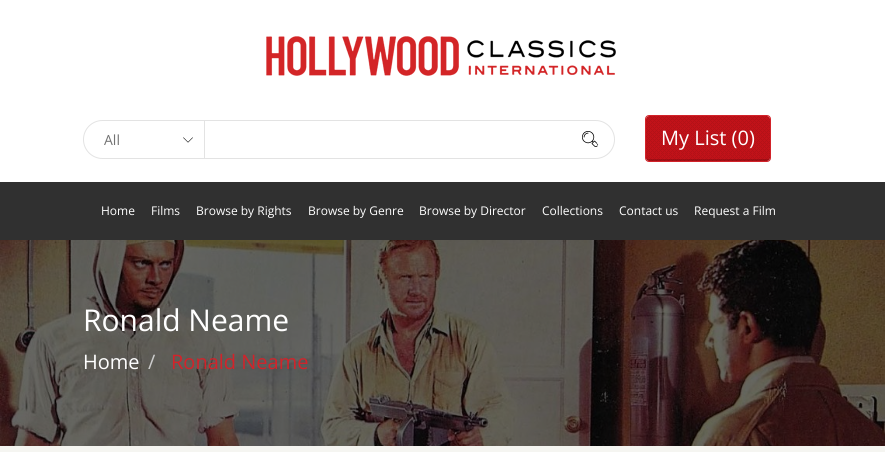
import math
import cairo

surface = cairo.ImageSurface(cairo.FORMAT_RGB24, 885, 452)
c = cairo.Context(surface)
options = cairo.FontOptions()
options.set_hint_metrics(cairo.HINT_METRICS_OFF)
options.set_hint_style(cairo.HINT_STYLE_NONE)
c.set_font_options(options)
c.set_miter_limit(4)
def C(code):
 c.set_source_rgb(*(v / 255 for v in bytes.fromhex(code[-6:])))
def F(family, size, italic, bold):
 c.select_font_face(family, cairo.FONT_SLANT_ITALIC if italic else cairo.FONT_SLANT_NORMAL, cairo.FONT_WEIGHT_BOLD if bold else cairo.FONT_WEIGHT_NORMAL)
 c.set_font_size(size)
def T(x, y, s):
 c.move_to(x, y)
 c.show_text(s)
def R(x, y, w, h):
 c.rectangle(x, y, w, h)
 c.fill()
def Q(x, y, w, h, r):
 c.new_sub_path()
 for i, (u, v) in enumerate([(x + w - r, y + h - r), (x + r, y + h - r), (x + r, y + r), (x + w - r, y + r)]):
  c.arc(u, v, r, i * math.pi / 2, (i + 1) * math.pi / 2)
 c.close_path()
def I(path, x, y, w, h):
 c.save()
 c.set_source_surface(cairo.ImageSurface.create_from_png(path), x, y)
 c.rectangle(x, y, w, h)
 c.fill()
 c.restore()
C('f5f5f1')
c.paint()
C('ffffff')
R(0,0,885,182)
I('1.png',266,36,350,40)
Q(83.5,120.5,531,38,19)
C('e3e3e3')
c.set_line_width(1)
c.stroke()
R(204,121,1,37)
F('Open Sans',14,0,0)
C('727272')
T(104,145,'All')
I('2.png',183,137,10,6)
I('3.png',582,131,17,16)
C('c11219')
Q(646,116,124,45,3)
c.fill()
I('4.png',646,116,124,45)
c.set_source_rgba(0,0,0,0.15)
c.new_path()
c.move_to(646,156)
c.line_to(646,158)
c.curve_to(646,160,647,161,649,161)
c.line_to(767,161)
c.curve_to(769,161,770,160,770,158)
c.line_to(770,156)
c.curve_to(770,158,769,159,767,159)
c.line_to(649,159)
c.curve_to(647,159,646,158,646,156)
c.close_path()
c.fill()
Q(645.5,115.5,125,46,3.5)
C('d2232a')
c.stroke()
F('Open Sans',20,0,0)
C('ffffff')
T(661,145,'My List (0)')
C('303030')
R(0,182,885,58)
F('Open Sans',12,0,0)
C('ffffff')
T(101,215,'Home')
T(151,215,'Films')
T(196,215,'Browse by Rights')
T(308,215,'Browse by Genre')
T(419,215,'Browse by Director')
T(542,215,'Collections')
T(619,215,'Contact us')
T(694,215,'Request a Film')
I('5.png',0,240,885,206)
F('Open Sans',30,0,0)
T(83,331,'Ronald Neame')
F('Open Sans',20,0,0)
T(83,369,'Home')
C('cccccc')
T(148,369,'/')
C('d2232a')
T(171,369,'Ronald Neame')
surface.write_to_png('o.png')
